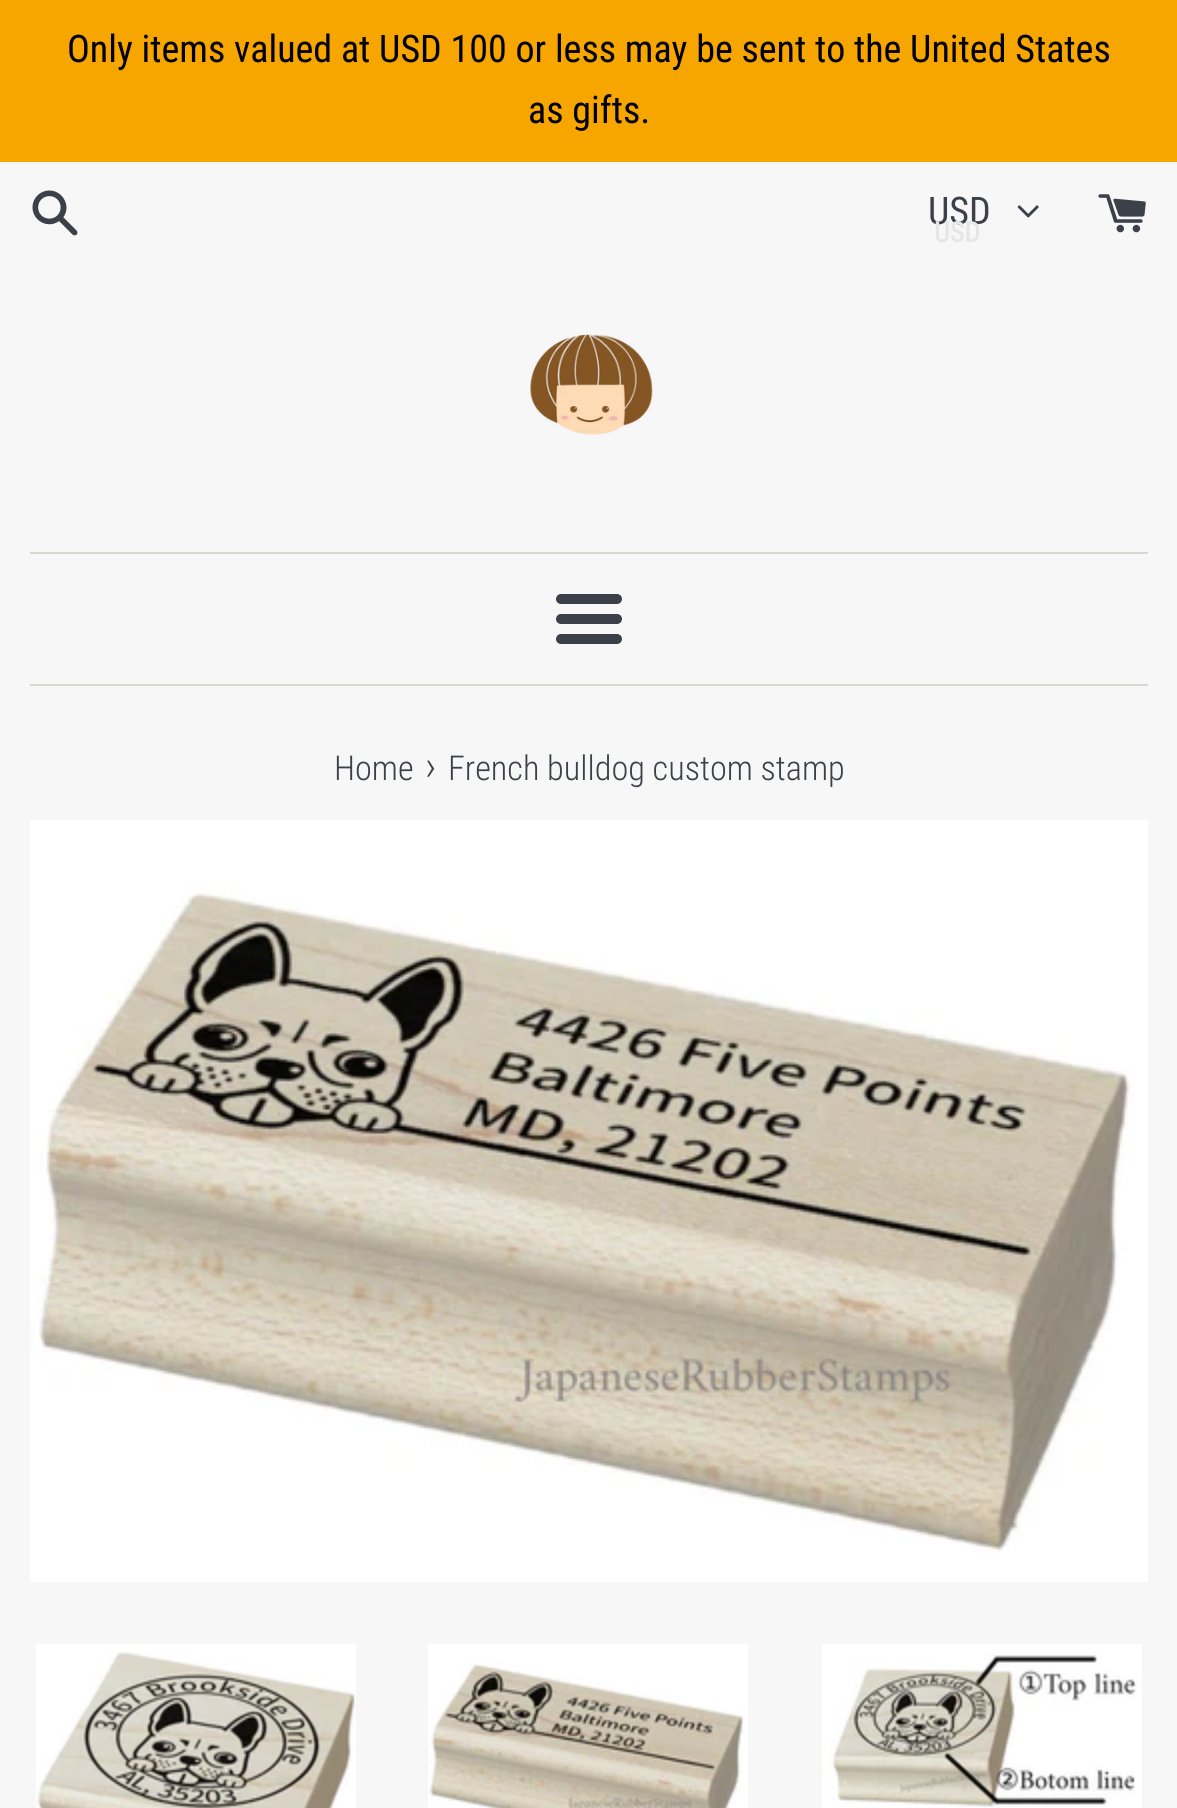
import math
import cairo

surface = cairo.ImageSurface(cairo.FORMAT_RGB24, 1177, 1808)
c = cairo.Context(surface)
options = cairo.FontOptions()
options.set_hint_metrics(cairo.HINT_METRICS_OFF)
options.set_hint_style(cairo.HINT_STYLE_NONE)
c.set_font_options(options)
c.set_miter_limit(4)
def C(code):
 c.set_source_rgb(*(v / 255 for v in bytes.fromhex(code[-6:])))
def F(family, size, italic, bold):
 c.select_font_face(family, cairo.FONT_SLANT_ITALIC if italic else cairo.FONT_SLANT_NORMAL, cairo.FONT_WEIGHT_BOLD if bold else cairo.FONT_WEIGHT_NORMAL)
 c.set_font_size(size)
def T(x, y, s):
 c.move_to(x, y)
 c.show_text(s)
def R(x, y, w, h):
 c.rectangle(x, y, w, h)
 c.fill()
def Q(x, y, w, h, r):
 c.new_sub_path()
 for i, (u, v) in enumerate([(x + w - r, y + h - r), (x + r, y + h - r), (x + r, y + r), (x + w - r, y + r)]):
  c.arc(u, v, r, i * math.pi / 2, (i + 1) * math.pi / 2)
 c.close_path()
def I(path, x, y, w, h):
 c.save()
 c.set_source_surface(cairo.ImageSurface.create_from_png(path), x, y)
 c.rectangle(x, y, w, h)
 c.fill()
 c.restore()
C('f7f7f7')
c.paint()
C('f7a600')
R(0,0,1177,162)
F('Roboto Condensed',38,0,0)
C('000000')
T(67,62,'Only items valued at USD 100 or less may be sent to the United States')
T(528,123,'as gifts.')
I('1.png',32,190,46,46)
C('3c4049')
T(928,224,'USD')
F('Roboto Condensed',28,0,1)
C('e6e6e7')
T(934,242,'USD')
I('2.png',1017,205,22,13)
I('3.png',1098,194,48,39)
I('4.png',530,334,123,101)
C('d7d8d2')
R(30,552,1118,2)
C('3c4049')
Q(556,594,66,10,5)
c.fill()
Q(556,614,66,10,5)
c.fill()
Q(556,634,66,10,5)
c.fill()
C('d7d8d2')
R(30,684,1118,2)
F('Roboto Condensed Light',34.25,0,0)
C('3c4049')
T(334,780,'Home')
F('Roboto Condensed Light',42,0,0)
T(425,780,'›')
F('Roboto Condensed Light',34.25,0,0)
T(448,780,'French bulldog custom stamp')
I('5.png',30,820,1118,762)
I('6.png',36,1644,320,164)
I('7.png',428,1644,320,164)
I('8.png',822,1644,320,164)
surface.write_to_png('o.png')
